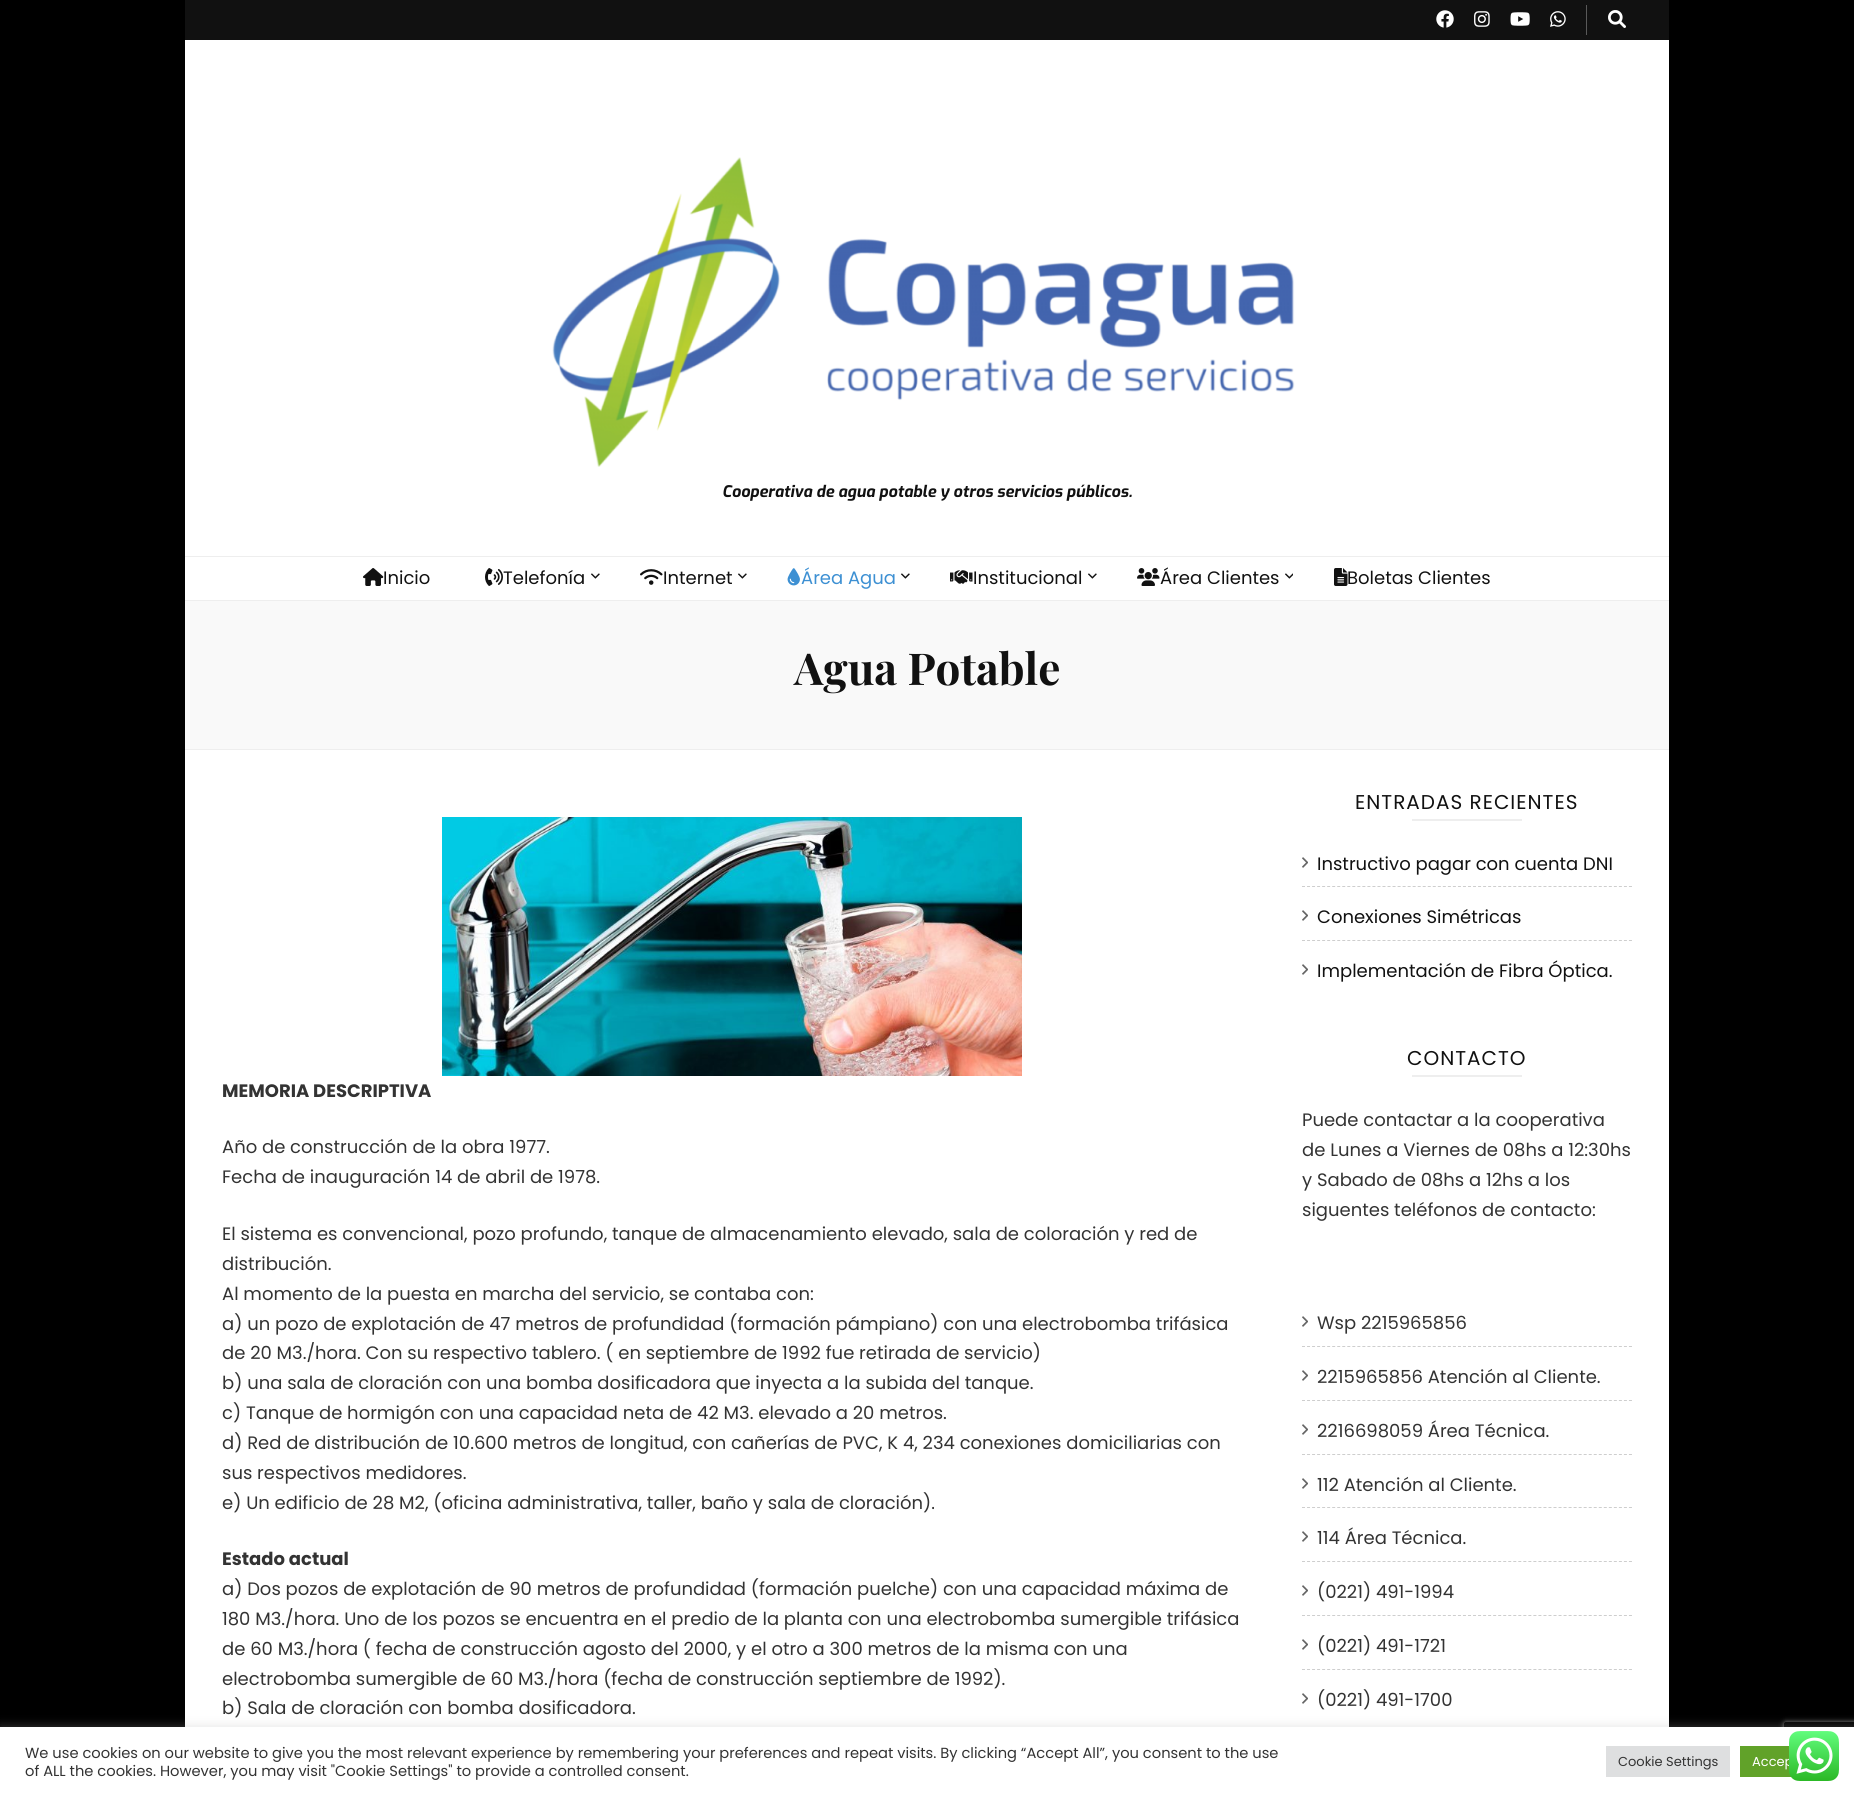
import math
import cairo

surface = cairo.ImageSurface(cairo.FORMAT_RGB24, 1854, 1796)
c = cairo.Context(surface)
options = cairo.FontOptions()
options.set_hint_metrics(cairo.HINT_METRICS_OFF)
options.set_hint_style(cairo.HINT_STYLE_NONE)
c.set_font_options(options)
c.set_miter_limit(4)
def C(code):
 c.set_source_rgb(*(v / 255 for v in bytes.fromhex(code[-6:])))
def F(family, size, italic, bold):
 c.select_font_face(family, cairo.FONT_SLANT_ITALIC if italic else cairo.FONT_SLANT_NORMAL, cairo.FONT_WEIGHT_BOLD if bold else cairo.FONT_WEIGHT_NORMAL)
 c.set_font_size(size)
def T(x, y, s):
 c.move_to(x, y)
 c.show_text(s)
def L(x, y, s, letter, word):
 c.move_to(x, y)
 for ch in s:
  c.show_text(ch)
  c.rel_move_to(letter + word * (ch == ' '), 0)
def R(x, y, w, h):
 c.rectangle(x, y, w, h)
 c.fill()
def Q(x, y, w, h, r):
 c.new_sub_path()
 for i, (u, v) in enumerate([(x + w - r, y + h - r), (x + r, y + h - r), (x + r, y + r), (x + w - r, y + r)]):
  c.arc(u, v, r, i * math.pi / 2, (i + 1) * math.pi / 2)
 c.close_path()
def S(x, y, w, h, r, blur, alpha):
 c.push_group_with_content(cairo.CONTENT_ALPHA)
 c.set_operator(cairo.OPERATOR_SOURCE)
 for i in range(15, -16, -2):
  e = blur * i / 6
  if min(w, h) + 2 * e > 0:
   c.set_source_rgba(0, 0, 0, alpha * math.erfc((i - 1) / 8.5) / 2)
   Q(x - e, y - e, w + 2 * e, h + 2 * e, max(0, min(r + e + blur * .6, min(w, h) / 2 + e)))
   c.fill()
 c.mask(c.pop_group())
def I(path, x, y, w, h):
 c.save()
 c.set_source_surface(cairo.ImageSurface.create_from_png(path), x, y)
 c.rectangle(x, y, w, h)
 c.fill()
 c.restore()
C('000000')
c.paint()
C('ffffff')
R(185,40,1484,1687)
C('111111')
R(185,0,1484,40)
C('595959')
R(1586,5,1,30)
I('1.png',1436,10,18,18)
I('2.png',1474,11,16,16)
I('3.png',1510,12,20,14)
I('4.png',1550,11,16,16)
I('5.png',1608,10,18,18)
I('6.png',552,157,743,310)
F('Exo',16,1,1)
C('111111')
T(722,497,'Cooperativa de agua potable y otros servicios públicos.')
C('eeeeee')
R(185,556,1484,1)
R(185,600,1484,1)
I('7.png',363,568,21,18)
F('Poppins',18,0,0)
C('111111')
T(383,584,'Inicio')
I('8.png',485,568,18,18)
T(503,584,'Telefonía')
I('9.png',591,573,9,6)
I('10.png',640,569,23,16)
T(663,584,'Internet')
I('9.png',738,573,9,6)
I('11.png',787,568,13,18)
C('3d90d3')
T(801,584,'Área Agua')
I('9.png',901,573,9,6)
I('12.png',950,570,23,14)
C('111111')
T(973,584,'Institucional')
I('9.png',1088,573,9,6)
I('13.png',1137,568,23,18)
T(1160,584,'Área Clientes')
I('14.png',1285,573,8,6)
I('15.png',1334,568,14,18)
T(1347,584,'Boletas Clientes')
C('f9f9f9')
R(185,601,1484,148)
C('eeeeee')
R(185,749,1484,1)
F('Playfair Display',44,0,1)
C('111111')
T(794,685,'Agua Potable')
I('16.png',442,817,580,259)
F('Poppins',18,0,1)
C('333333')
T(222,1097,'MEMORIA DESCRIPTIVA')
F('Poppins',18,0,0)
T(222,1153,'Año de construcción de la obra 1977.')
T(222,1183,'Fecha de inauguración 14 de abril de 1978.')
T(222,1240,'El sistema es convencional, pozo profundo, tanque de almacenamiento elevado, sala de coloración y red de')
T(222,1270,'distribución.')
T(222,1300,'Al momento de la puesta en marcha del servicio, se contaba con:')
T(222,1330,'a) un pozo de explotación de 47 metros de profundidad (formación pámpiano) con una electrobomba trifásica')
T(222,1359,'de 20 M3./hora. Con su respectivo tablero. ( en septiembre de 1992 fue retirada de servicio)')
T(222,1389,'b) una sala de cloración con una bomba dosificadora que inyecta a la subida del tanque.')
T(222,1419,'c) Tanque de hormigón con una capacidad neta de 42 M3. elevado a 20 metros.')
T(222,1449,'d) Red de distribución de 10.600 metros de longitud, con cañerías de PVC, K 4, 234 conexiones domiciliarias con')
T(222,1479,'sus respectivos medidores.')
T(222,1509,'e) Un edificio de 28 M2, (oficina administrativa, taller, baño y sala de cloración).')
F('Poppins',18,0,1)
T(222,1565,'Estado actual')
F('Poppins',18,0,0)
T(222,1595,'a) Dos pozos de explotación de 90 metros de profundidad (formación puelche) con una capacidad máxima de')
T(222,1625,'180 M3./hora. Uno de los pozos se encuentra en el predio de la planta con una electrobomba sumergible trifásica')
T(222,1655,'de 60 M3./hora ( fecha de construcción agosto del 2000, y el otro a 300 metros de la misma con una')
T(222,1685,'electrobomba sumergible de 60 M3./hora (fecha de construcción septiembre de 1992).')
T(222,1714,'b) Sala de cloración con bomba dosificadora.')
F('Poppins',20,0,0)
C('111111')
L(1355,809,'ENTRADAS RECIENTES',1,0)
C('eeeeee')
R(1412,819,110,2)
c.new_path()
c.move_to(1302,886.5)
c.line_to(1632,886.5)
C('cecece')
c.set_line_width(1)
c.set_dash([3,2.03])
c.stroke()
I('17.png',1302,857,6,11)
F('Poppins',18,0,0)
C('111111')
T(1317,870,'Instructivo pagar con cuenta DNI')
c.new_path()
c.move_to(1302,940.5)
c.line_to(1632,940.5)
C('cecece')
c.stroke()
I('17.png',1302,910,6,11)
C('111111')
T(1317,923,'Conexiones Simétricas')
I('17.png',1302,964,6,11)
T(1317,977,'Implementación de Fibra Óptica.')
F('Poppins',20,0,0)
L(1407,1065,'CONTACTO',1,0)
C('eeeeee')
R(1412,1075,110,2)
F('Poppins',18,0,0)
C('333333')
T(1302,1126,'Puede contactar a la cooperativa')
T(1302,1156,'de Lunes a Viernes de 08hs a 12:30hs')
T(1302,1186,'y Sabado de 08hs a 12hs a los')
T(1302,1216,'siguentes teléfonos de contacto:')
c.new_path()
c.move_to(1302,1346.5)
c.line_to(1632,1346.5)
C('cecece')
c.stroke()
I('17.png',1302,1316,6,11)
C('333333')
T(1317,1329,'Wsp 2215965856')
c.new_path()
c.move_to(1302,1400.5)
c.line_to(1632,1400.5)
C('cecece')
c.stroke()
I('17.png',1302,1370,6,11)
C('333333')
T(1317,1383,'2215965856 Atención al Cliente.')
c.new_path()
c.move_to(1302,1454.5)
c.line_to(1632,1454.5)
C('cecece')
c.stroke()
I('17.png',1302,1424,6,11)
C('333333')
T(1317,1437,'2216698059 Área Técnica.')
c.new_path()
c.move_to(1302,1507.5)
c.line_to(1632,1507.5)
C('cecece')
c.stroke()
I('17.png',1302,1478,6,11)
C('333333')
T(1317,1491,'112 Atención al Cliente.')
c.new_path()
c.move_to(1302,1561.5)
c.line_to(1632,1561.5)
C('cecece')
c.stroke()
I('17.png',1302,1531,6,11)
C('333333')
T(1317,1544,'114 Área Técnica.')
c.new_path()
c.move_to(1302,1615.5)
c.line_to(1632,1615.5)
C('cecece')
c.stroke()
I('17.png',1302,1585,6,11)
C('333333')
T(1317,1598,'(0221) 491-1994')
c.new_path()
c.move_to(1302,1669.5)
c.line_to(1632,1669.5)
C('cecece')
c.stroke()
I('17.png',1302,1639,6,11)
C('333333')
T(1317,1652,'(0221) 491-1721')
I('17.png',1302,1693,6,11)
T(1317,1706,'(0221) 491-1700')
c.save()
c.set_fill_rule(cairo.FILL_RULE_EVEN_ODD)
c.new_path()
c.move_to(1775,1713)
c.line_to(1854,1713)
c.line_to(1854,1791)
c.line_to(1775,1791)
c.close_path()
c.move_to(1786,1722)
c.line_to(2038,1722)
c.curve_to(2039,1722,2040,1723,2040,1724)
c.line_to(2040,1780)
c.curve_to(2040,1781,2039,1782,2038,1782)
c.line_to(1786,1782)
c.curve_to(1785,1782,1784,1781,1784,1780)
c.line_to(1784,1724)
c.curve_to(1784,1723,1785,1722,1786,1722)
c.close_path()
c.clip()
C('808080')
S(1784,1722,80,60,2,2.5,1)
c.restore()
C('acabab')
S(0,1726,1854,69,0,5,.3)
C('ffffff')
R(0,1727,1854,69)
F('Poppins',14.67,0,0)
C('333333')
T(25,1758,'We use cookies on our website to give you the most relevant experience by remembering your preferences and repeat visits. By clicking “Accept All”, you consent to the use')
T(25,1776,'of ALL the cookies. However, you may visit "Cookie Settings" to provide a controlled consent.')
C('dedfe0')
R(1606,1746,124,31)
F('Poppins',13,0,0)
C('333333')
T(1618,1766,'Cookie Settings')
C('61a229')
R(1740,1746,51,31)
C('ffffff')
T(1752,1766,'Accep')
I('18.png',1789,1731,50,50)
surface.write_to_png('o.png')
